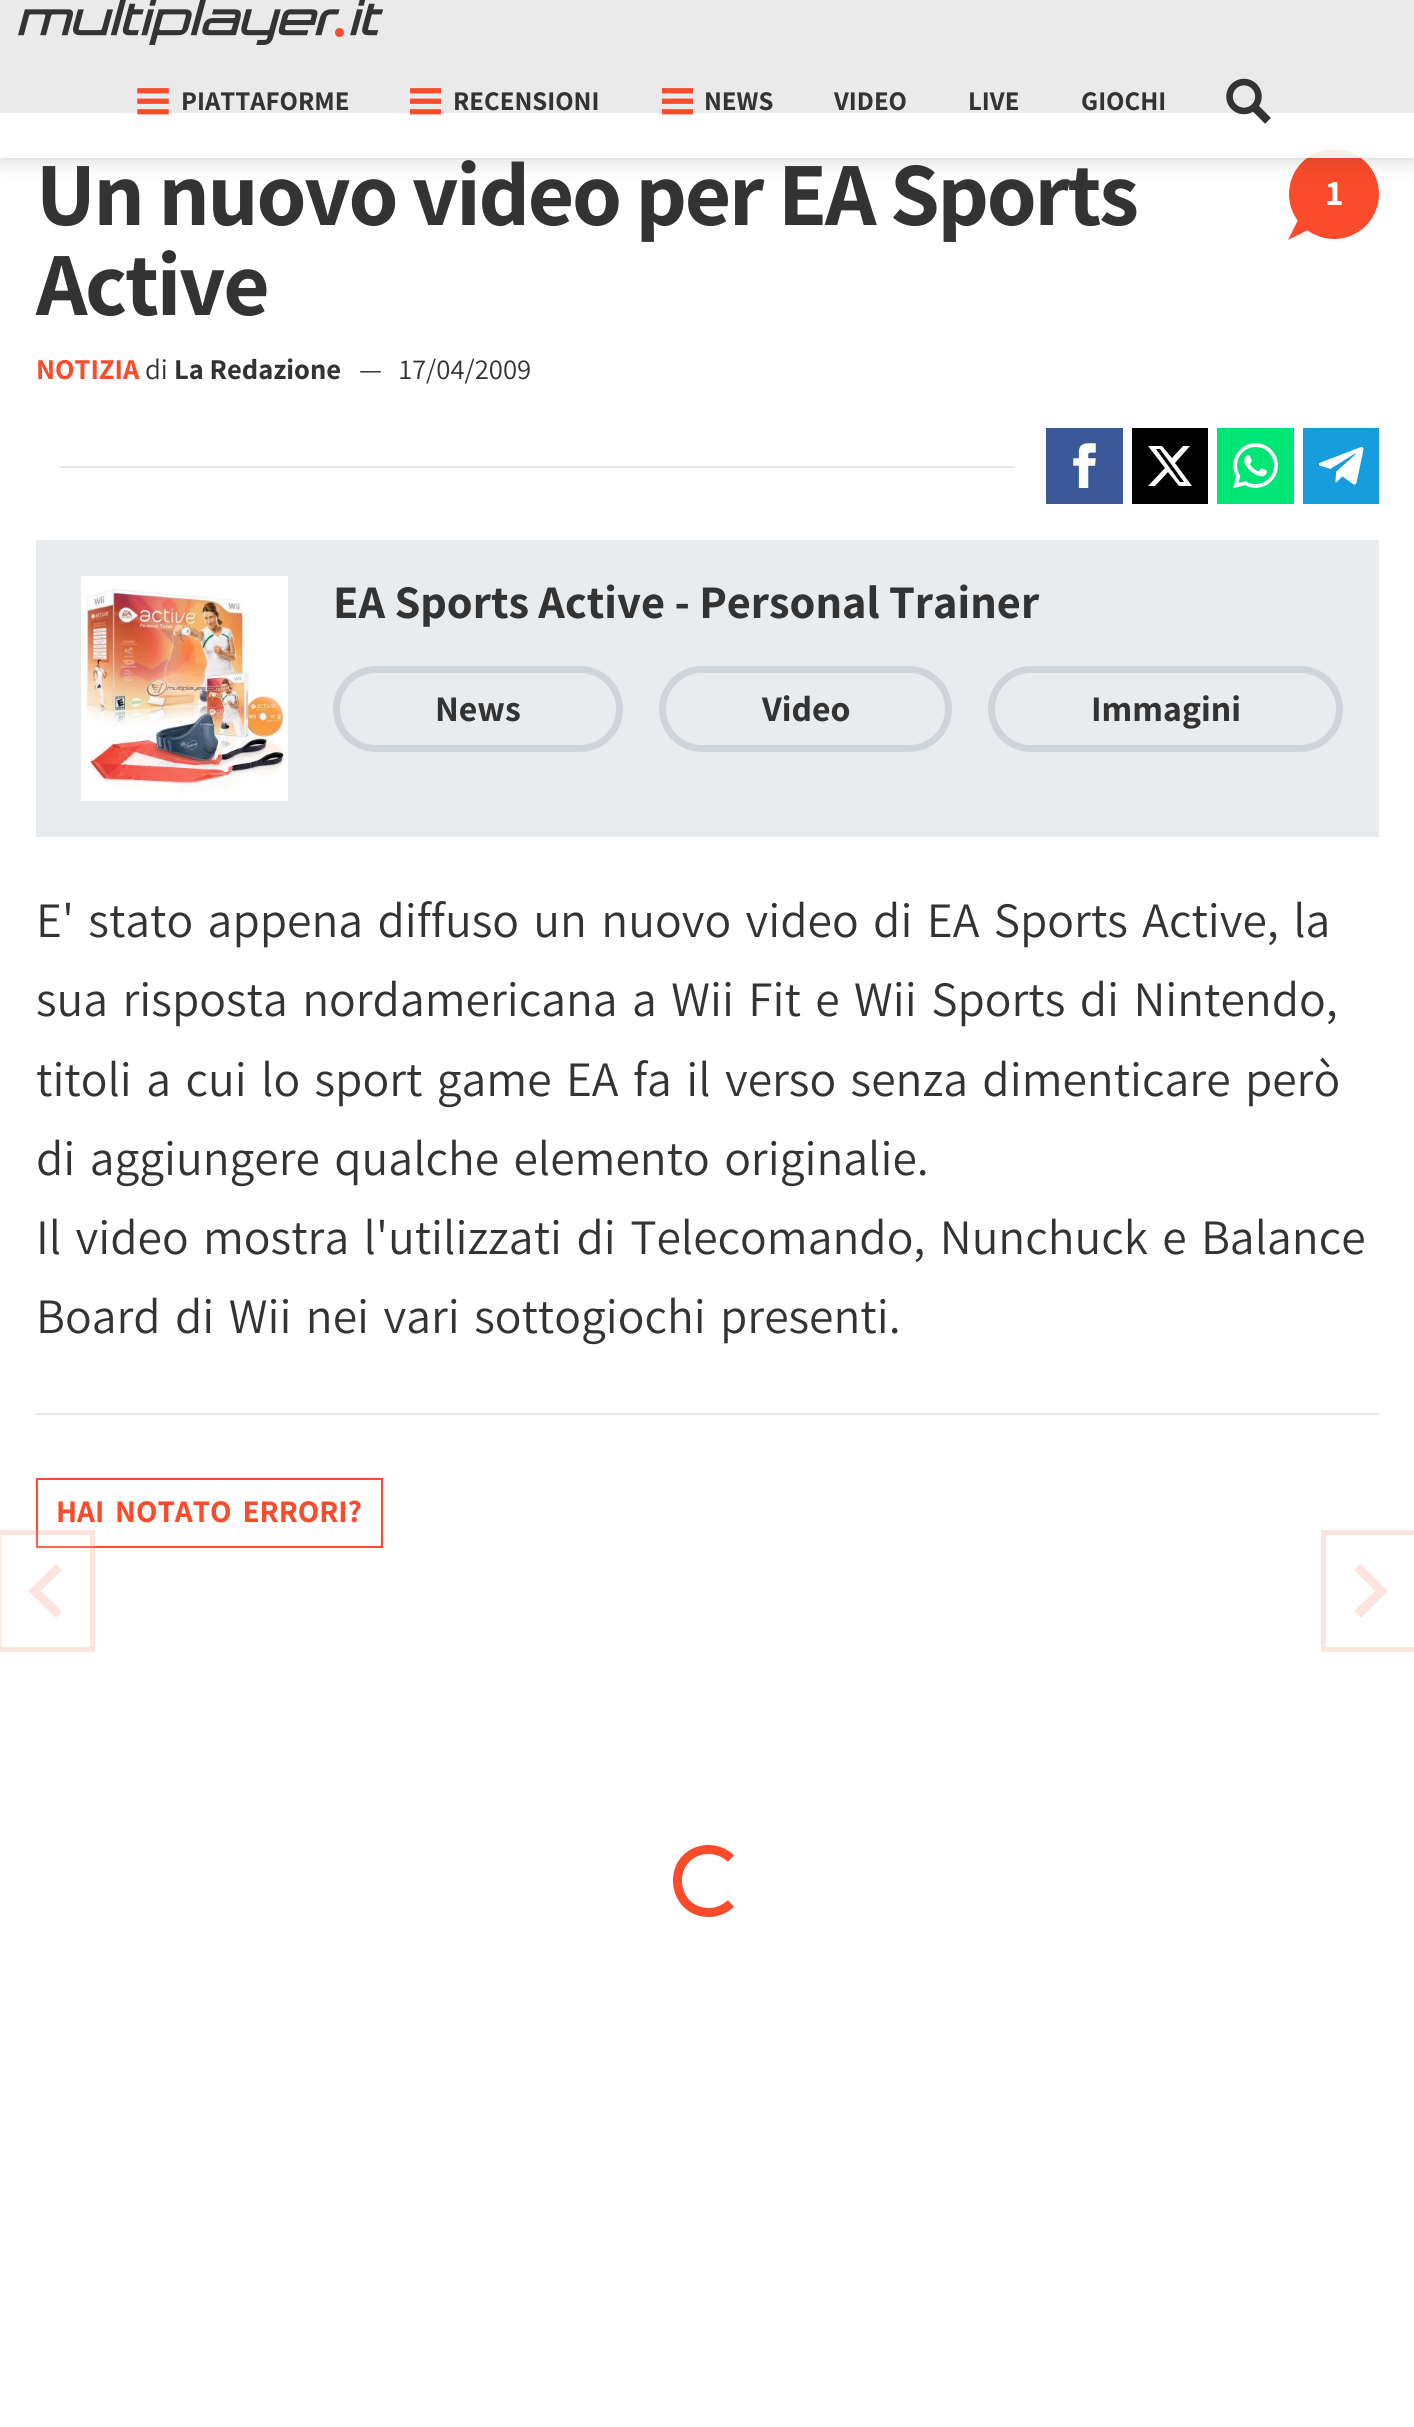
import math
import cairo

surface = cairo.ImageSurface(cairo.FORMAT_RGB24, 1414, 2427)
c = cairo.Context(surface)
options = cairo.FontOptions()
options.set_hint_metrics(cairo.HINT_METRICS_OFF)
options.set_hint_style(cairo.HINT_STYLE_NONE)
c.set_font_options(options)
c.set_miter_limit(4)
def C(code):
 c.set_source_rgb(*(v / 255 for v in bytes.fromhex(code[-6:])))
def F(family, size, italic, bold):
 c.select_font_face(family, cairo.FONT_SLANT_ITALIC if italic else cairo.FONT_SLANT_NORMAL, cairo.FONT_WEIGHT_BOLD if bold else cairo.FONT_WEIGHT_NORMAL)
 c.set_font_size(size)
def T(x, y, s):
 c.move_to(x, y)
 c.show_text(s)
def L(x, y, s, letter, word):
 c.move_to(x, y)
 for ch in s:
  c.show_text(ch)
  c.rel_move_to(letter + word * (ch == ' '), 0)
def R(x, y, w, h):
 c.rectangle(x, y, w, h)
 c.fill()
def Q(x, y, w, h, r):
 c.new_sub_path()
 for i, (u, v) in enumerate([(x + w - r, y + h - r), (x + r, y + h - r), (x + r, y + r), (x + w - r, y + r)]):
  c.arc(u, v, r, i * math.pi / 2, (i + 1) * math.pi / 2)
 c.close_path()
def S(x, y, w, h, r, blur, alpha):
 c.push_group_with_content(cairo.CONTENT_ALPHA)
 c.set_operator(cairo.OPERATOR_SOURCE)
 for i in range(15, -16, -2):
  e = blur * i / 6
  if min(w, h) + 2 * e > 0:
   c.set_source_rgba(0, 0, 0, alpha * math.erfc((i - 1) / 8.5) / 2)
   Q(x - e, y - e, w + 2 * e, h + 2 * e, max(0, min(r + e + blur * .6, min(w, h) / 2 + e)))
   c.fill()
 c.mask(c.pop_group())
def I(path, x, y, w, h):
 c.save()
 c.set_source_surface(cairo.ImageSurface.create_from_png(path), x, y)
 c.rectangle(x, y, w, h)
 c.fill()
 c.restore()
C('252525')
c.paint()
C('ffffff')
R(0,113,1414,2314)
C('fa4b2a')
c.arc(1334,194,45,0,2 * math.pi)
c.fill()
c.new_path()
c.move_to(1320,176)
c.line_to(1352,208)
c.line_to(1288,240)
c.close_path()
c.fill()
c.save()
c.set_fill_rule(cairo.FILL_RULE_EVEN_ODD)
c.new_path()
c.move_to(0,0)
c.line_to(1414,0)
c.line_to(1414,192)
c.line_to(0,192)
c.close_path()
c.move_to(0,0)
c.line_to(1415,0)
c.line_to(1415,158)
c.line_to(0,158)
c.close_path()
c.clip()
C('333333')
S(0,0,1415,158,0,11,.25)
c.restore()
c.set_source_rgba(1,1,1,0.9)
R(0,0,1414,158)
I('1.png',18,0,365,45)
I('2.png',137,88,32,27)
F('Assistant ExtraLight',27,0,0)
C('333333')
T(181,110,'PIATTAFORME')
I('3.png',410,88,31,27)
T(453,110,'RECENSIONI')
I('3.png',662,88,31,27)
T(704,110,'NEWS')
T(834,110,'VIDEO')
T(968,110,'LIVE')
T(1081,110,'GIOCHI')
I('4.png',1226,78,45,46)
F('Assistant ExtraLight',90.4,0,0)
L(36,225,'Un nuovo video per EA Sports',-2.25,0)
L(36,315,'Active',-2.25,0)
F('Assistant ExtraLight',36,0,0)
C('ffffff')
L(1326,205,'1',-1,0)
F('Assistant ExtraLight',28.75,0,0)
C('fa4b2a')
T(36,379,'NOTIZIA')
F('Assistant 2 ExtraLight',28.75,0,0)
C('333333')
T(145,379,'di')
F('Assistant ExtraLight',28.75,0,0)
T(174,379,'La Redazione')
F('Assistant 2 ExtraLight',28.75,0,0)
T(359,379,'—')
T(399,379,'17/04/2009')
C('e6e6e6')
R(59,466,956,2)
C('3b5998')
R(1046,428,77,76)
I('5.png',1073,443,23,45)
C('000000')
R(1132,428,76,76)
C('ffffff')
c.new_path()
c.move_to(1183,446)
c.line_to(1190,446)
c.line_to(1175,463)
c.line_to(1192,486)
c.line_to(1179,486)
c.line_to(1168,472)
c.line_to(1155,486)
c.line_to(1148,486)
c.line_to(1165,468)
c.line_to(1148,446)
c.line_to(1162,446)
c.line_to(1172,458)
c.close_path()
c.move_to(1180,482)
c.line_to(1184,482)
c.line_to(1160,449)
c.line_to(1156,449)
c.close_path()
c.fill()
C('00e676')
R(1217,428,77,76)
I('6.png',1233,443,45,45)
C('179cde')
R(1303,428,76,76)
I('7.png',1319,447,45,38)
C('e9ecef')
R(36,540,1343,297)
I('8.png',81,576,207,225)
F('Assistant ExtraLight',46.75,0,0)
C('333333')
T(333,618,'EA Sports Active - Personal Trainer')
Q(336.5,669.5,283,79,39.5)
C('ced4da')
c.set_line_width(7)
c.stroke()
F('Assistant ExtraLight',36,0,0)
C('333333')
T(435,721,'News')
Q(662.5,669.5,286,79,39.5)
C('ced4da')
c.stroke()
C('333333')
T(762,721,'Video')
Q(991.5,669.5,348,79,39.5)
C('ced4da')
c.stroke()
C('333333')
T(1091,721,'Immagini')
F('Assistant 2 ExtraLight',49.5,0,0)
L(36,937,'E\' stato appena diffuso un nuovo video di EA Sports Active, la',0,4.5)
L(36,1016,'sua risposta nordamericana a Wii Fit e Wii Sports di Nintendo,',0,4.5)
L(36,1096,'titoli a cui lo sport game EA fa il verso senza dimenticare però',0,4.5)
L(36,1175,'di aggiungere qualche elemento originalie.',0,4.5)
L(36,1254,'Il video mostra l\'utilizzati di Telecomando, Nunchuck e Balance',0,4.5)
L(36,1333,'Board di Wii nei vari sottogiochi presenti.',0,4.5)
C('e6e6e6')
R(36,1413,1343,2)
c.rectangle(37,1479,345,68)
C('fa4b2a')
c.set_line_width(2)
c.stroke()
F('Assistant ExtraLight',31.5,0,0)
L(56,1522,'HAI NOTATO ERRORI?',0,4.5)
c.new_path()
c.move_to(731,1903.5)
c.curve_to(725,1909,717,1912.5,709,1912.5)
c.curve_to(671,1912.5,665.5,1857.5,702.5,1850)
c.curve_to(713,1848,723.5,1851.5,731,1858.5)
c.set_line_width(9)
c.stroke()
c.set_source_rgba(1,1,1,0.15)
R(36,1530,59,18)
c.rectangle(-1.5,1532.5,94,117)
c.set_source_rgba(0.98,0.294,0.165,0.15)
c.set_line_width(5)
c.stroke()
C('fee4df')
c.new_path()
c.move_to(56,1564)
c.line_to(62,1570)
c.line_to(41,1591)
c.line_to(62,1611)
c.line_to(56,1618)
c.line_to(28,1591)
c.close_path()
c.fill()
c.rectangle(1323.5,1532.5,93,117)
c.stroke()
c.new_path()
c.move_to(1354,1570)
c.line_to(1361,1564)
c.line_to(1388,1591)
c.line_to(1361,1618)
c.line_to(1354,1611)
c.line_to(1375,1591)
c.close_path()
c.fill()
surface.write_to_png('o.png')
